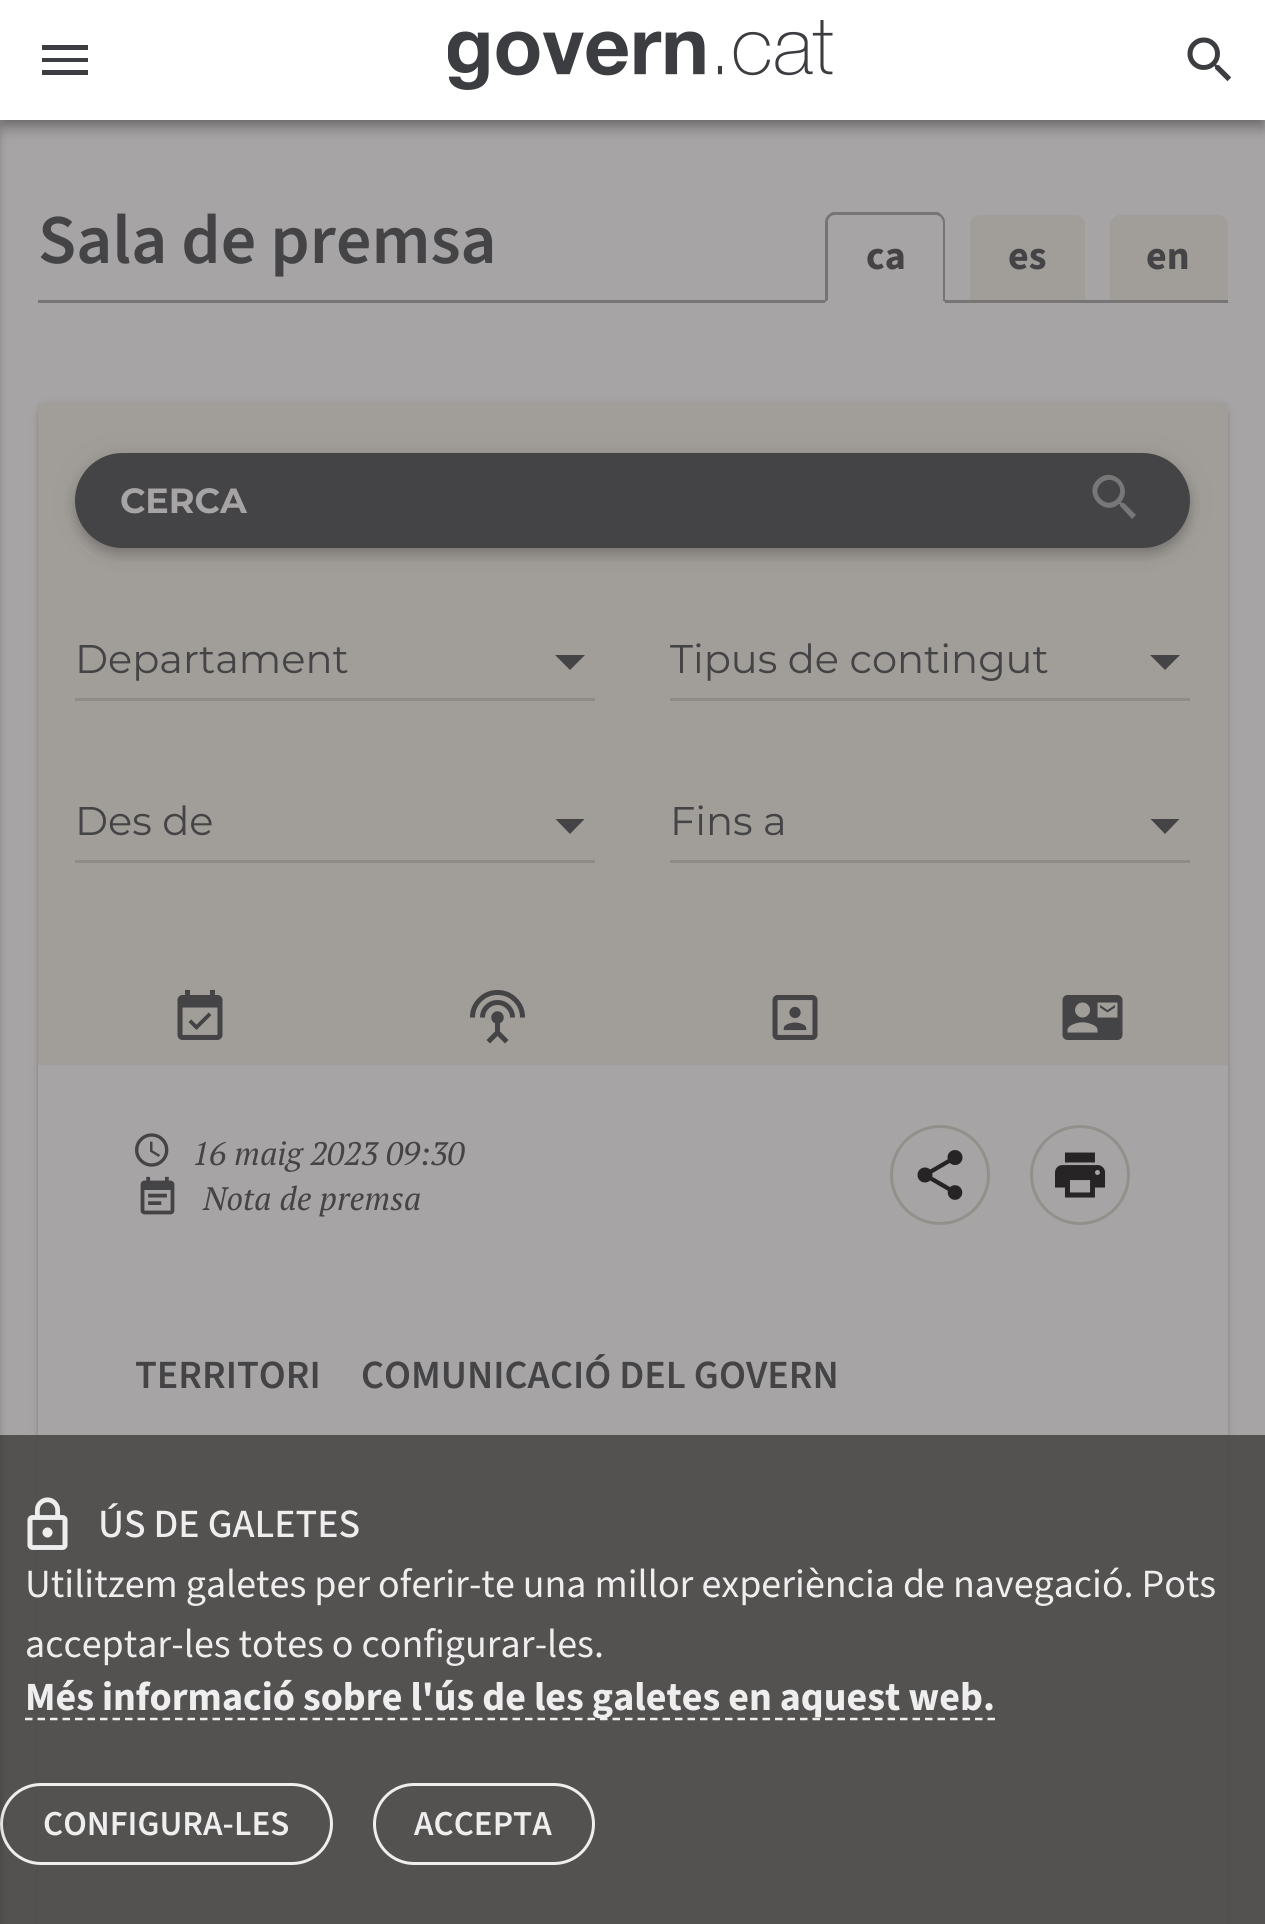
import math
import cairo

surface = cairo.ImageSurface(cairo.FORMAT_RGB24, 1265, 1924)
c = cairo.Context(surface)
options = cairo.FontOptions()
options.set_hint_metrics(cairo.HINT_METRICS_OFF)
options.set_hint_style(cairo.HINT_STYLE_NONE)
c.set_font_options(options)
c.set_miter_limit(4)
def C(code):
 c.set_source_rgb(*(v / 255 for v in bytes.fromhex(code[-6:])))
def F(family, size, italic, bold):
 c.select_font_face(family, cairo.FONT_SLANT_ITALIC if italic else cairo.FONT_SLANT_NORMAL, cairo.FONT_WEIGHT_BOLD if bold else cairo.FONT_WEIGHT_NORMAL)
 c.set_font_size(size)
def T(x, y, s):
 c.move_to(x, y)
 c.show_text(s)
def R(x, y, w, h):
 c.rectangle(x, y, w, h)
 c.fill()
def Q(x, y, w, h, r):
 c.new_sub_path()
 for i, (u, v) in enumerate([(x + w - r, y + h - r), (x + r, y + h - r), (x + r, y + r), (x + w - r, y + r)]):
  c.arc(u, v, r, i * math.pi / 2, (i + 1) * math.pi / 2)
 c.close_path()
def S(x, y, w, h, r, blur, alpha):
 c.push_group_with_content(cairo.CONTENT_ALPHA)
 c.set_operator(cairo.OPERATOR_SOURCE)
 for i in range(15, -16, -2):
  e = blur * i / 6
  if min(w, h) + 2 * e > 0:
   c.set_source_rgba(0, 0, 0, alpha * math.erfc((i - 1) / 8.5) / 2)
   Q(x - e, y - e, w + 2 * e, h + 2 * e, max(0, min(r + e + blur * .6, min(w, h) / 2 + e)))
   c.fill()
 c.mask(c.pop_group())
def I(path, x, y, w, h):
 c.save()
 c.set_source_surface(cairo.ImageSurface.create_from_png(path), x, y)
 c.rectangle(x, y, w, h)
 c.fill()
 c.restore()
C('a6a4a4')
c.paint()
C('262525')
S(38,405,1190,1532,10,1,.14)
S(38,405,1190,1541,10,4,.2)
C('a6a4a4')
R(38,1065,1190,859)
c.set_source_rgba(0.298,0.286,0.286,0.9)
R(0,1435,1265,489)
Q(1.5,1784.5,330,79,39.5)
c.set_source_rgba(1,1,1,0.9)
c.set_line_width(3)
c.stroke()
C('000000')
S(-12,3,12,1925,0,4,.2)
S(0,3,1265,120,0,12.5,.12)
S(0,10,1265,120,0,6,.14)
S(3,8,1260,115,0,5,.2)
C('ffffff')
R(0,0,1265,120)
C('3c3d41')
c.new_path()
c.move_to(42,45)
c.line_to(88,45)
c.line_to(88,50)
c.line_to(42,50)
c.close_path()
c.move_to(42,62)
c.line_to(42,58)
c.line_to(88,58)
c.line_to(88,62)
c.close_path()
c.move_to(42,75)
c.line_to(42,70)
c.line_to(88,70)
c.line_to(88,75)
c.close_path()
c.fill()
I('1.png',448,20,385,70)
I('2.png',1187,37,45,45)
C('777575')
R(38,300,1190,3)
F('Source Sans 3 SemiBold',70,0,0)
C('444345')
T(38,263,'Sala de premsa')
C('a6a4a4')
c.new_path()
c.move_to(835,213)
c.line_to(935,213)
c.curve_to(940.5,213,945,217.5,945,223)
c.line_to(945,303)
c.line_to(825,303)
c.line_to(825,223)
c.curve_to(825,217.5,829.5,213,835,213)
c.close_path()
c.fill()
C('777575')
c.new_path()
c.move_to(835,215)
c.curve_to(833,215,831,216,830,217)
c.line_to(828,215)
c.line_to(832,212)
c.line_to(938,212)
c.line_to(942,215)
c.line_to(940,217)
c.curve_to(939,216,937,215,935,215)
c.close_path()
c.fill()
c.set_source_rgba(0.188,0.184,0.18,0.4)
c.new_path()
c.move_to(945,302)
c.line_to(945,222)
c.curve_to(945,220,944,217,942,215)
c.line_to(940,217)
c.curve_to(941,218,942,220,942,222)
c.line_to(942,300)
c.close_path()
c.fill()
C('a6a4a4')
c.new_path()
c.move_to(944,302)
c.line_to(826,302)
c.line_to(828,300)
c.line_to(942,300)
c.close_path()
c.fill()
c.set_source_rgba(0.188,0.184,0.18,0.4)
c.new_path()
c.move_to(825,222)
c.line_to(825,302)
c.line_to(828,300)
c.line_to(828,222)
c.curve_to(828,220,829,218,830,217)
c.line_to(828,215)
c.curve_to(826,217,825,220,825,222)
c.close_path()
c.fill()
C('a6a4a4')
c.new_path()
c.move_to(836,215)
c.line_to(935,215)
c.curve_to(939.5,215,943,218.5,943,223)
c.line_to(943,300)
c.line_to(828,300)
c.line_to(828,223)
c.curve_to(828,218.5,831.5,215,836,215)
c.close_path()
c.fill()
F('Source Sans 3',40,0,1)
C('444345')
T(866,269,'ca')
C('a19e99')
c.new_path()
c.move_to(980,215)
c.line_to(1075,215)
c.curve_to(1080.5,215,1085,219.5,1085,225)
c.line_to(1085,300)
c.line_to(970,300)
c.line_to(970,225)
c.curve_to(970,219.5,974.5,215,980,215)
c.close_path()
c.fill()
C('444345')
T(1008,269,'es')
C('a19e99')
c.new_path()
c.move_to(1120,215)
c.line_to(1218,215)
c.curve_to(1223.5,215,1228,219.5,1228,225)
c.line_to(1228,300)
c.line_to(1110,300)
c.line_to(1110,225)
c.curve_to(1110,219.5,1114.5,215,1120,215)
c.close_path()
c.fill()
C('444345')
T(1146,269,'en')
C('a19e99')
R(38,403,1190,662)
C('262525')
S(75,455,1115,95,47.5,12.5,.12)
S(75,463,1115,95,47.5,6,.14)
S(78,460,1110,90,45,5,.2)
C('444345')
Q(75,453,1115,95,47.5)
c.fill()
F('Montserrat',35,0,1)
C('a6a4a4')
T(120,513,'CERCA')
C('787777')
c.new_path()
c.move_to(1101,499)
c.curve_to(1111,510,1127,494,1117,483)
c.curve_to(1106,473,1090,489,1101,499)
c.close_path()
c.move_to(1124,503)
c.line_to(1136,515)
c.line_to(1132,519)
c.line_to(1120,506)
c.line_to(1120,504)
c.line_to(1119,504)
c.curve_to(1104,517,1083,494,1097,480)
c.curve_to(1112,465,1134,486,1121,502)
c.line_to(1122,503)
c.close_path()
c.fill()
F('Montserrat',40,0,0)
C('444345')
T(75,673,'Departament')
c.new_path()
c.move_to(555,655)
c.line_to(585,655)
c.line_to(570,670)
c.close_path()
c.fill()
C('908c85')
R(75,698,520,3)
C('444345')
T(670,673,'Tipus de contingut')
c.new_path()
c.move_to(1150,655)
c.line_to(1180,655)
c.line_to(1165,670)
c.close_path()
c.fill()
C('908c85')
R(670,698,520,3)
C('444345')
T(75,835,'Des de')
c.new_path()
c.move_to(555.5,819)
c.line_to(584.5,819)
c.line_to(570,834)
c.close_path()
c.fill()
C('908c85')
R(75,860,520,3)
C('444345')
T(670,835,'Fins a')
c.new_path()
c.move_to(1150.5,819)
c.line_to(1179.5,819)
c.line_to(1165,834)
c.close_path()
c.fill()
C('908c85')
R(670,860,520,3)
I('3.png',177,989,46,51)
I('4.png',470,990,55,54)
I('5.png',772,995,46,45)
I('6.png',1062,995,61,45)
I('7.png',135,1133,34,34)
F('PT Serif',32.5,1,0)
C('444345')
T(192,1165,'16 maig 2023 09:30')
I('8.png',140,1176,35,39)
T(203,1210,'Nota de premsa')
c.new_path()
c.arc(940,1175,48.5,0,2 * math.pi)
C('93908b')
c.stroke()
I('9.png',917,1150,46,50)
c.arc(1080,1175,48.5,0,2 * math.pi)
c.stroke()
I('10.png',1055,1152,51,46)
F('Source Sans 3 SemiBold',40,0,0)
C('444345')
T(135,1388,'TERRITORI')
T(361,1388,'COMUNICACIÓ DEL GOVERN')
I('11.png',27,1497,41,53)
F('Source Sans 3 Medium',40,0,0)
C('eeeeee')
T(98,1537,'ÚS DE GALETES')
F('Source Sans 3',40,0,0)
T(25,1597,'Utilitzem galetes per oferir-te una millor experiència de navegació. Pots')
T(25,1657,'acceptar-les totes o configurar-les.')
c.new_path()
c.move_to(25,1719)
c.line_to(995,1719)
c.set_source_rgba(1,1,1,0.9)
c.set_line_width(2.5)
c.set_dash([7.5,5])
c.stroke()
F('Source Sans 3',40,0,1)
C('eeeeee')
T(25,1710,'Més informació sobre l\'ús de les galetes en aquest web.')
F('Source Sans 3 SemiBold',35,0,0)
T(43,1835,'CONFIGURA-LES')
Q(374.5,1784.5,219,79,39.5)
c.set_source_rgba(1,1,1,0.9)
c.set_line_width(3)
c.set_dash([])
c.stroke()
C('eeeeee')
T(414,1835,'ACCEPTA')
surface.write_to_png('o.png')
